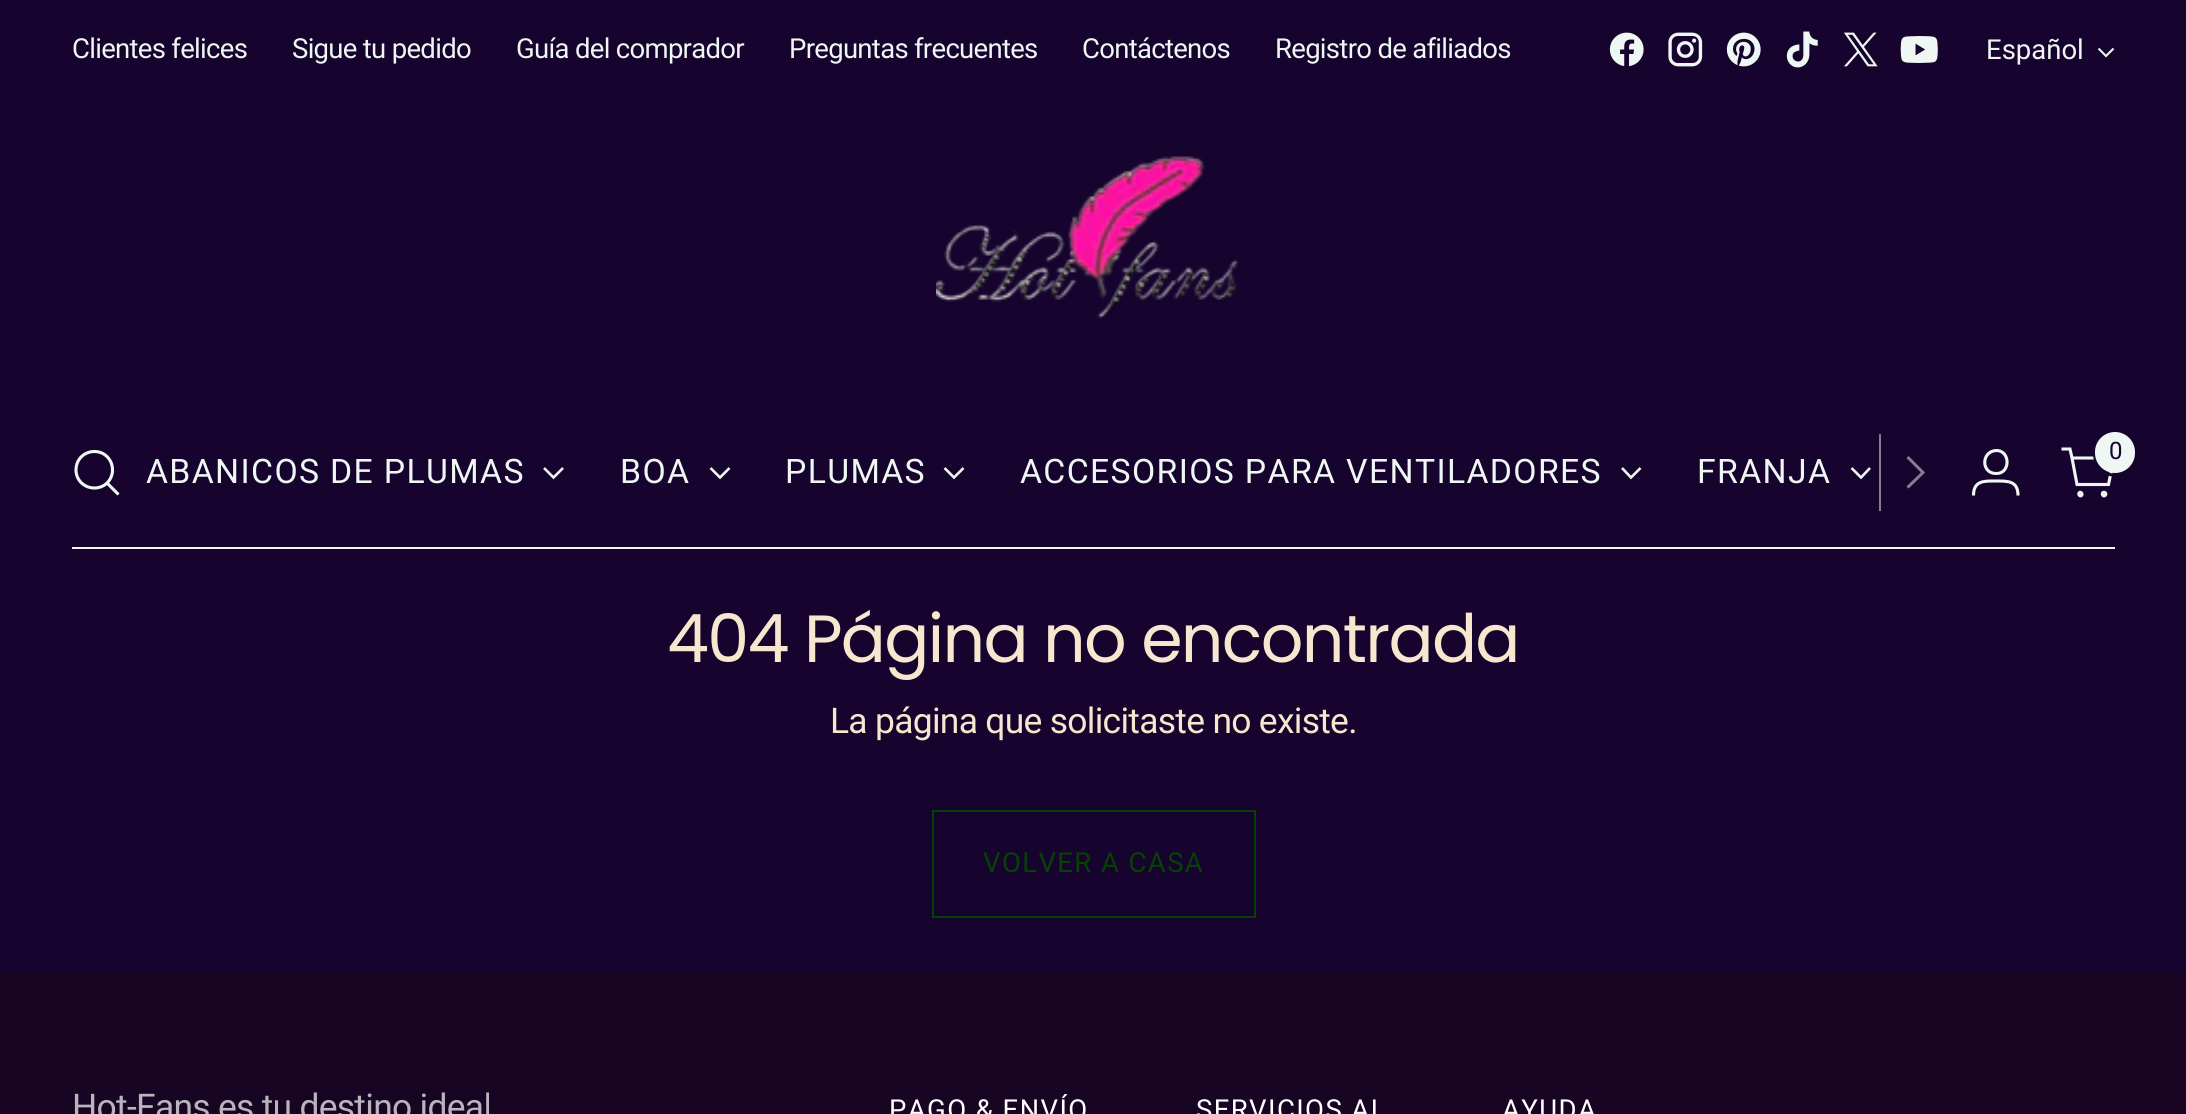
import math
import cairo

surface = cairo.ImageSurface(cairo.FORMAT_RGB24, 2186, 1114)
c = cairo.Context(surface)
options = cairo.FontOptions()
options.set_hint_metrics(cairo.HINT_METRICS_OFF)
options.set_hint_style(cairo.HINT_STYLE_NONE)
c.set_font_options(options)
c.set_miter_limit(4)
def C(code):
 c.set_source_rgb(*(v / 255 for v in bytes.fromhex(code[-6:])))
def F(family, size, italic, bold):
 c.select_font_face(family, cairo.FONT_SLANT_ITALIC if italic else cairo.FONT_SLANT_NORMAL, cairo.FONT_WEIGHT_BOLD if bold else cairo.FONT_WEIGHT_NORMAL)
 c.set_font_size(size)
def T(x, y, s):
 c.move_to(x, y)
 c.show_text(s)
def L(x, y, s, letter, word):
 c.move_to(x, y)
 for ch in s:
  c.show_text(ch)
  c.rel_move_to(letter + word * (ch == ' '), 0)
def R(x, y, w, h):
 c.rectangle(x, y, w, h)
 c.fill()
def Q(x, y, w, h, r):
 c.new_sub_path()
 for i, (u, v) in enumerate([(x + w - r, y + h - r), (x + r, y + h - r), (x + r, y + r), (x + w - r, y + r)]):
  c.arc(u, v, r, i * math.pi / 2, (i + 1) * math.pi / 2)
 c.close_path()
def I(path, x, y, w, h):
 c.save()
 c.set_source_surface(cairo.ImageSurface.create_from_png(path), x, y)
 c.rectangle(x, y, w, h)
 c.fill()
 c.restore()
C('16032e')
c.paint()
C('eff7f4')
R(72,547,2043,2)
F('Roboto',27.5,0,0)
L(72,58,'Clientes felices',-.7,0)
L(292,58,'Sigue tu pedido',-.7,0)
L(516,58,'Guía del comprador',-.7,0)
L(789,58,'Preguntas frecuentes',-.7,0)
L(1082,58,'Contáctenos',-.7,0)
L(1275,58,'Registro de afiliados',-.7,0)
I('1.png',1609,32,35,35)
I('2.png',1668,32,35,35)
I('3.png',1726,32,35,35)
I('4.png',1786,31,32,37)
I('5.png',1844,32,34,35)
I('6.png',1900,36,38,27)
T(1986,59,'Español')
c.new_path()
c.move_to(2098.5,48.5)
c.line_to(2106,56)
c.line_to(2113.5,48.5)
c.set_line_width(2.1)
c.stroke()
I('7.png',936,156,303,163)
c.new_path()
c.move_to(94.5,488)
c.curve_to(104.5,488,112.5,480,112.5,470)
c.curve_to(112.5,459.5,104.5,451.5,94.5,451.5)
c.curve_to(84,451.5,76,459.5,76,470)
c.curve_to(76,480,84,488,94.5,488)
c.close_path()
c.set_line_width(3.1)
c.set_line_cap(cairo.LINE_CAP_ROUND)
c.stroke()
c.new_path()
c.move_to(107,483)
c.line_to(118.5,494.5)
c.set_line_cap(cairo.LINE_CAP_BUTT)
c.stroke()
F('Roboto',33.75,0,0)
L(146,483,'ABANICOS DE PLUMAS',1.35,0)
c.new_path()
c.move_to(544,468)
c.line_to(553.5,477.5)
c.line_to(563,468)
c.set_line_width(2.6)
c.stroke()
L(620,483,'BOA',1.35,0)
c.new_path()
c.move_to(710.5,468)
c.line_to(720,477.5)
c.line_to(729.5,468)
c.stroke()
L(785,483,'PLUMAS',1.35,0)
c.new_path()
c.move_to(944.5,468)
c.line_to(954,477.5)
c.line_to(963.5,468)
c.stroke()
L(1020,483,'ACCESORIOS PARA VENTILADORES',1.35,0)
c.new_path()
c.move_to(1622,468)
c.line_to(1631,477.5)
c.line_to(1640.5,468)
c.stroke()
L(1697,483,'FRANJA',1.35,0)
c.new_path()
c.move_to(1851.5,468)
c.line_to(1861,477.5)
c.line_to(1870,468)
c.stroke()
C('837d91')
R(1879,434,2,77)
c.new_path()
c.move_to(1907.5,487.5)
c.line_to(1923,472.5)
c.line_to(1907.5,457)
c.set_line_width(3)
c.stroke()
c.new_path()
c.move_to(1996,473.5)
c.curve_to(2011,474,2010.5,450,1996,450.5)
c.curve_to(1981,451.5,1981,473.5,1996,473.5)
c.close_path()
c.move_to(1973.5,495.5)
c.curve_to(1973.5,480.5,1984,481,1995.5,481)
c.curve_to(2007.5,481,2018,480.5,2018,495.5)
C('eff7f4')
c.set_line_width(3.1)
c.stroke()
c.new_path()
c.move_to(2072,458)
c.line_to(2114,458)
c.line_to(2108.5,484.5)
c.line_to(2077,484.5)
c.close_path()
c.move_to(2072,458)
c.line_to(2070,449)
c.line_to(2061.5,449)
c.stroke()
c.arc(2116.5,453.5,22,0,2 * math.pi)
C('16032e')
c.set_line_width(3)
c.stroke()
C('eff7f4')
Q(2095,432,40,41,20)
c.fill()
F('Roboto',24,0,0)
C('16032e')
L(2109,459,'0',-.7,0)
c.new_path()
c.move_to(2079.5,492.5)
c.curve_to(2081,491.5,2083,494,2081.5,495.5)
c.curve_to(2080,497,2077.5,494,2079.5,492.5)
c.close_path()
c.move_to(2103,492.5)
c.curve_to(2105,491.5,2107,494,2105,495.5)
c.curve_to(2103.5,497,2101,494,2103,492.5)
c.close_path()
C('eff7f4')
c.set_line_width(3.1)
c.set_line_cap(cairo.LINE_CAP_ROUND)
c.set_line_join(cairo.LINE_JOIN_BEVEL)
c.stroke()
F('Poppins',66.75,0,0)
C('f7e7ce')
L(667,662,'404 Página no encontrada',-1.7,0)
F('Roboto',35.4,0,0)
L(830,733,'La página que solicitaste no existe.',-.7,0)
c.rectangle(933,811,322,106)
C('064104')
c.set_line_width(2)
c.set_line_cap(cairo.LINE_CAP_BUTT)
c.set_line_join(cairo.LINE_JOIN_MITER)
c.stroke()
F('Roboto',27.5,0,0)
L(983,872,'VOLVER A CASA',1.4,0)
C('170523')
R(0,972,2186,142)
F('Roboto',35.4,0,0)
C('b9b4bd')
L(72,1119,'Hot-Fans es tu destino ideal',-.7,0)
F('Roboto',27.5,0,0)
C('ffffff')
L(889,1119,'PAGO & ENVÍO',1.4,0)
L(1196,1119,'SERVICIOS AL',1.4,0)
L(1502,1119,'AYUDA',1.4,0)
surface.write_to_png('o.png')
